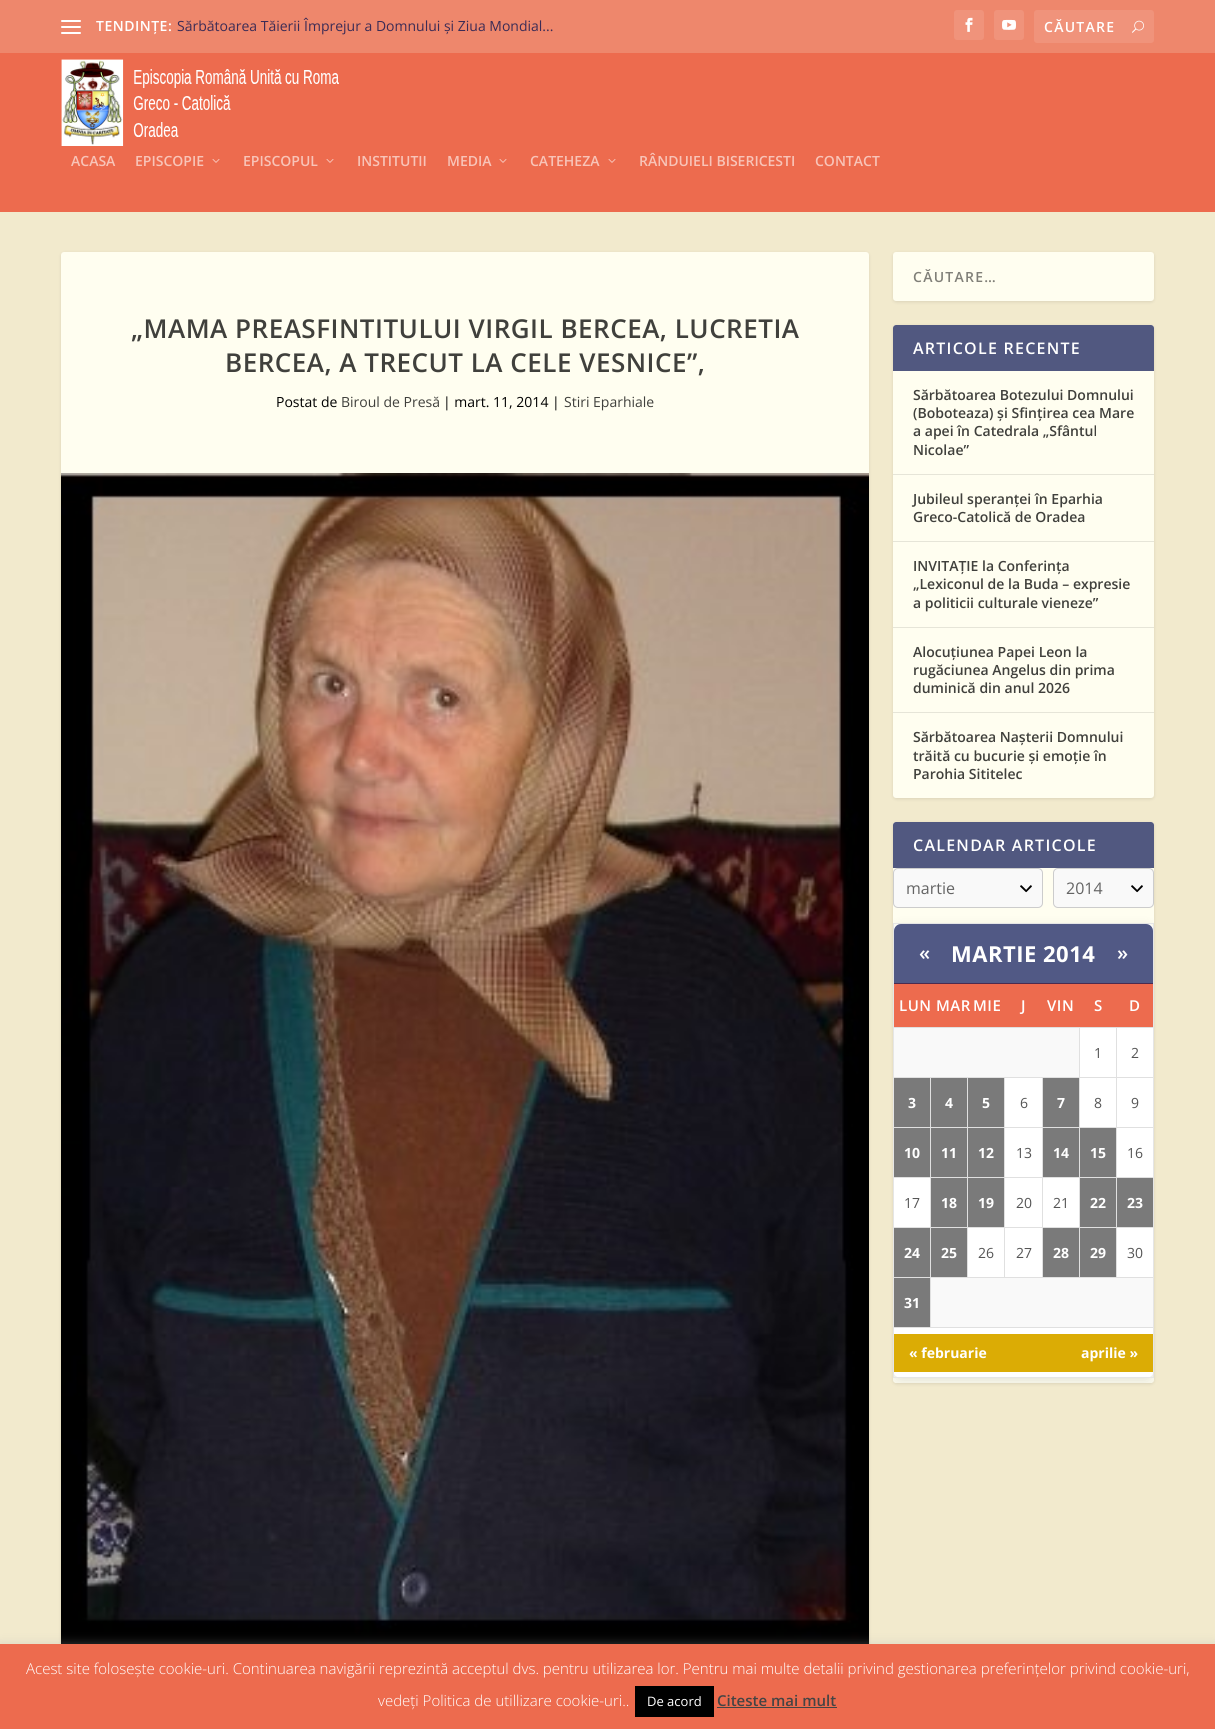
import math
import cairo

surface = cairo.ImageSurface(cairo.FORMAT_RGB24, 1215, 1729)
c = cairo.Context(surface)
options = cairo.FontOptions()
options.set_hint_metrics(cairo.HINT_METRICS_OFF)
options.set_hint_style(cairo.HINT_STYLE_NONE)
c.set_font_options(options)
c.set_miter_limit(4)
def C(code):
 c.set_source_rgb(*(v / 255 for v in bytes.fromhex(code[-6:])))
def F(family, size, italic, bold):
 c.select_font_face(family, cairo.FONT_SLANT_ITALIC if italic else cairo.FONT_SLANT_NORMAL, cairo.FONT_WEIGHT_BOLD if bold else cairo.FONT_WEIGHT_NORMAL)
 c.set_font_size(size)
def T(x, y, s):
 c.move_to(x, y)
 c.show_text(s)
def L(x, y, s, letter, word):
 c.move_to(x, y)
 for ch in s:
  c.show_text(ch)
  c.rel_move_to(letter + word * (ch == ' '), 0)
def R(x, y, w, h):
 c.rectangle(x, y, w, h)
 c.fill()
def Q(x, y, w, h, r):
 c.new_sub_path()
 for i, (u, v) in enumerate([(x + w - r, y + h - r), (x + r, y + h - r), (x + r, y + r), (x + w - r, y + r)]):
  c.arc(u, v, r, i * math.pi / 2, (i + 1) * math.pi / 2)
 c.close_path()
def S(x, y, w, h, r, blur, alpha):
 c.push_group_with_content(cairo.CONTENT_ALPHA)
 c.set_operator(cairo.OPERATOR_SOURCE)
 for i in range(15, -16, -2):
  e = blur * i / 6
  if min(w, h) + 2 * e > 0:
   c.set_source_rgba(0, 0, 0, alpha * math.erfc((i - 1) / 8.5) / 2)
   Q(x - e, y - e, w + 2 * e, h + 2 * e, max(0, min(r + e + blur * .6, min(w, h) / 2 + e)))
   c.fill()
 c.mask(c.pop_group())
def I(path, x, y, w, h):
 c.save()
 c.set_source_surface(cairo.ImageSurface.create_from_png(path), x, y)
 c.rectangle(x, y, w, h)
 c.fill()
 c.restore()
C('f2eacd')
c.paint()
C('ee876c')
R(0,0,1215,53)
C('ffffff')
Q(61,20,20,2,1)
c.fill()
Q(61,26,20,2,1)
c.fill()
Q(61,32,20,2,1)
c.fill()
F('Open Sans SemiBold',14,0,0)
L(96,31,'TENDINȚE:',.5,0)
F('Open Sans',14,0,0)
C('3b2b55')
T(177,31,'Sărbătoarea Tăierii Împrejur a Domnului și Ziua Mondial...')
C('f0937b')
Q(954,10,30,30,3)
c.fill()
I('1.png',965,17,8,15)
Q(994,10,30,30,3)
c.fill()
I('2.png',1002,19,14,11)
Q(1034,10,120,33,3)
c.fill()
F('Open Sans SemiBold',14,0,0)
C('ffffff')
L(1044,32,'CĂUTARE',1.25,0)
I('3.png',1132,20,12,13)
C('ed6b4e')
R(0,53,1215,159)
I('4.png',61,59,278,87)
C('f8c4b8')
T(71,166,'ACASA')
T(135,166,'EPISCOPIE')
I('5.png',212,159,8,4)
T(243,166,'EPISCOPUL')
I('5.png',326,159,8,4)
T(357,166,'INSTITUTII')
T(447,166,'MEDIA')
I('5.png',499,159,8,4)
T(530,166,'CATEHEZA')
I('5.png',608,159,8,4)
T(639,166,'RÂNDUIELI BISERICESTI')
T(815,166,'CONTACT')
C('000000')
S(61,253,808,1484,3,1.5,.1)
C('fffef0')
Q(61,252,808,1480,3)
c.fill()
F('Open Sans SemiBold',26,0,0)
C('40403c')
L(131,338,'„MAMA PREASFINTITULUI VIRGIL BERCEA, LUCRETIA',.5,0)
L(225,372,'BERCEA, A TRECUT LA CELE VESNICE”,',.5,0)
F('Open Sans',14,0,0)
C('000000')
T(276,407,'Postat de')
C('40403c')
T(341,407,'Biroul de Presă')
C('000000')
T(443,407,'| mart. 11, 2014 |')
C('40403c')
T(564,407,'Stiri Eparhiale')
I('6.png',61,473,808,1171)
C('000000')
S(893,253,261,49,3,1.5,.1)
C('fffef0')
Q(893,252,261,49,3)
c.fill()
F('Open Sans SemiBold',14,0,0)
C('807f78')
L(913,282,'CĂUTARE…',1.25,0)
C('000000')
S(893,326,261,473,3,1.5,.1)
C('fffef0')
Q(893,325,261,473,3)
c.fill()
c.set_source_rgba(0.012,0.055,0.306,0.69)
c.new_path()
c.move_to(896,325)
c.line_to(1151,325)
c.curve_to(1152.5,325,1154,326.5,1154,328)
c.line_to(1154,371)
c.line_to(893,371)
c.line_to(893,328)
c.curve_to(893,326.5,894.5,325,896,325)
c.close_path()
c.fill()
F('Open Sans SemiBold',16,0,0)
C('ffffff')
L(913,354,'ARTICOLE RECENTE',1.25,0)
C('e6e5d8')
R(893,474,261,1)
F('Open Sans SemiBold',14,0,0)
C('40403c')
T(913,400,'Sărbătoarea Botezului Domnului')
T(913,418,'(Boboteaza) și Sfințirea cea Mare')
T(913,436,'a apei în Catedrala „Sfântul')
T(913,455,'Nicolae”')
C('e6e5d8')
R(893,541,261,1)
C('40403c')
T(913,504,'Jubileul speranței în Eparhia')
T(913,522,'Greco-Catolică de Oradea')
C('e6e5d8')
R(893,627,261,1)
C('40403c')
T(913,571,'INVITAȚIE la Conferința')
T(913,589,'„Lexiconul de la Buda – expresie')
T(913,608,'a politicii culturale vieneze”')
C('e6e5d8')
R(893,712,261,1)
C('40403c')
T(913,657,'Alocuțiunea Papei Leon la')
T(913,675,'rugăciunea Angelus din prima')
T(913,693,'duminică din anul 2026')
T(913,742,'Sărbătoarea Nașterii Domnului')
T(913,761,'trăită cu bucurie și emoție în')
T(913,779,'Parohia Sititelec')
C('000000')
S(893,823,261,561,3,1.5,.1)
C('fffef0')
Q(893,822,261,561,3)
c.fill()
c.set_source_rgba(0.012,0.055,0.306,0.69)
c.new_path()
c.move_to(896,822)
c.line_to(1151,822)
c.curve_to(1152.5,822,1154,823.5,1154,825)
c.line_to(1154,868)
c.line_to(893,868)
c.line_to(893,825)
c.curve_to(893,823.5,894.5,822,896,822)
c.close_path()
c.fill()
F('Open Sans SemiBold',16,0,0)
C('ffffff')
L(913,851,'CALENDAR ARTICOLE',1.25,0)
C('f9f9f9')
Q(893,868,150,40,5)
c.fill()
I('7.png',1020,885,12,8)
Q(893.5,868.5,149,39,4.5)
C('cccccc')
c.set_line_width(1)
c.stroke()
F('Open Sans',16,0,0)
C('646464')
T(906,894,'martie')
C('f9f9f9')
Q(1053,868,101,40,5)
c.fill()
I('7.png',1131,885,12,8)
Q(1053.5,868.5,100,39,4.5)
C('cccccc')
c.stroke()
C('646464')
T(1066,894,'2014')
c.save()
Q(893,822,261,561,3)
c.clip()
C('000000')
S(893,927,261,455,8,6,.1)
c.restore()
C('ffffff')
Q(893,923,261,455,8)
c.fill()
C('e5e5e5')
R(893,923,261,1)
c.save()
Q(894,924,259,453,7)
c.clip()
C('515985')
c.new_path()
c.move_to(901,924)
c.line_to(1146,924)
c.curve_to(1150.5,924,1154,927.5,1154,932)
c.line_to(1154,983)
c.line_to(893,983)
c.line_to(893,932)
c.curve_to(893,927.5,896.5,924,901,924)
c.close_path()
c.fill()
c.restore()
R(1153,923,1,455)
R(893,1377,261,1)
R(893,923,1,455)
C('4c2b4e')
R(894,983,259,1)
F('Open Sans SemiBold',20,0,0)
C('ffffff')
L(919,960,'«',.5,0)
F('Open Sans',22,0,1)
L(951,962,'MARTIE 2014',.5,0)
F('Open Sans SemiBold',20,0,0)
L(1117,960,'»',.5,0)
C('ed6b4e')
R(894,984,259,43)
F('Open Sans SemiBold',15,0,0)
C('ffffff')
L(899,1011,'LUN MAR',.5,0)
L(973,1011,'MIE',.5,0)
L(1021,1011,'J',.5,0)
L(1047,1011,'VIN',.5,0)
L(1094,1011,'S',.5,0)
L(1129,1011,'D',.5,0)
C('f9f9f9')
R(894,1028,185,49)
C('e0e0e0')
R(1116,1027,37,1)
R(1116,1077,37,1)
R(1116,1127,37,1)
R(1116,1177,37,1)
R(1116,1227,37,1)
R(930,1277,223,1)
R(1116,1227,1,51)
R(1079,1227,38,1)
R(1116,1177,1,51)
R(1079,1177,38,1)
R(1116,1127,1,51)
R(1079,1127,38,1)
R(1116,1077,1,51)
R(1079,1077,38,1)
R(1116,1027,1,51)
R(1079,1027,38,1)
R(1079,1227,1,51)
R(1042,1227,38,1)
R(1079,1177,1,51)
R(1042,1177,38,1)
R(1079,1127,1,51)
R(1042,1127,38,1)
R(1079,1077,1,51)
R(1042,1077,38,1)
R(1079,1027,1,51)
R(894,1027,186,1)
F('Open Sans',14,0,0)
C('555555')
T(1094,1058,'1')
T(1131,1058,'2')
C('e0e0e0')
R(1042,1227,1,51)
R(1004,1227,39,1)
R(1042,1177,1,51)
R(1004,1177,39,1)
R(1042,1127,1,51)
R(1004,1127,39,1)
R(1042,1077,1,51)
R(1004,1077,39,1)
R(1004,1227,1,51)
R(967,1227,38,1)
R(1004,1177,1,51)
R(967,1177,38,1)
R(1004,1127,1,51)
R(967,1127,38,1)
R(1004,1077,1,51)
R(967,1077,38,1)
R(967,1227,1,51)
R(930,1227,38,1)
R(967,1177,1,51)
R(930,1177,38,1)
R(967,1127,1,51)
R(930,1127,38,1)
R(967,1077,1,51)
R(930,1077,38,1)
R(930,1327,223,1)
R(930,1277,1,51)
R(894,1277,37,1)
R(930,1227,1,51)
R(894,1227,37,1)
R(930,1177,1,51)
R(894,1177,37,1)
R(930,1127,1,51)
R(894,1127,37,1)
R(930,1077,1,51)
R(894,1077,37,1)
C('7a7a7a')
R(894,1078,36,49)
F('Open Sans',14,0,1)
C('ffffff')
T(908,1108,'3')
C('7a7a7a')
R(931,1078,36,49)
C('ffffff')
T(945,1108,'4')
C('7a7a7a')
R(968,1078,36,49)
C('ffffff')
T(982,1108,'5')
F('Open Sans',14,0,0)
C('555555')
T(1020,1108,'6')
C('7a7a7a')
R(1043,1078,36,49)
F('Open Sans',14,0,1)
C('ffffff')
T(1057,1108,'7')
F('Open Sans',14,0,0)
C('555555')
T(1094,1108,'8')
T(1131,1108,'9')
C('7a7a7a')
R(894,1128,36,49)
F('Open Sans',14,0,1)
C('ffffff')
T(904,1158,'10')
C('7a7a7a')
R(931,1128,36,49)
C('ffffff')
T(941,1158,'11')
C('7a7a7a')
R(968,1128,36,49)
C('ffffff')
T(978,1158,'12')
F('Open Sans',14,0,0)
C('555555')
T(1016,1158,'13')
C('7a7a7a')
R(1043,1128,36,49)
F('Open Sans',14,0,1)
C('ffffff')
T(1053,1158,'14')
C('7a7a7a')
R(1080,1128,36,49)
C('ffffff')
T(1090,1158,'15')
F('Open Sans',14,0,0)
C('555555')
T(1127,1158,'16')
T(904,1208,'17')
C('7a7a7a')
R(931,1178,36,49)
F('Open Sans',14,0,1)
C('ffffff')
T(941,1208,'18')
C('7a7a7a')
R(968,1178,36,49)
C('ffffff')
T(978,1208,'19')
F('Open Sans',14,0,0)
C('555555')
T(1016,1208,'20')
T(1053,1208,'21')
C('7a7a7a')
R(1080,1178,36,49)
F('Open Sans',14,0,1)
C('ffffff')
T(1090,1208,'22')
C('7a7a7a')
R(1117,1178,36,49)
C('ffffff')
T(1127,1208,'23')
C('7a7a7a')
R(894,1228,36,49)
C('ffffff')
T(904,1258,'24')
C('7a7a7a')
R(931,1228,36,49)
C('ffffff')
T(941,1258,'25')
F('Open Sans',14,0,0)
C('555555')
T(978,1258,'26')
T(1016,1258,'27')
C('7a7a7a')
R(1043,1228,36,49)
F('Open Sans',14,0,1)
C('ffffff')
T(1053,1258,'28')
C('7a7a7a')
R(1080,1228,36,49)
C('ffffff')
T(1090,1258,'29')
F('Open Sans',14,0,0)
C('555555')
T(1127,1258,'30')
C('e0e0e0')
R(894,1327,37,1)
C('7a7a7a')
R(894,1278,36,49)
F('Open Sans',14,0,1)
C('ffffff')
T(904,1308,'31')
C('f9f9f9')
R(931,1278,222,49)
C('dbac05')
R(894,1334,259,38)
C('ffffff')
T(909,1358,'« februarie')
T(1081,1358,'aprilie »')
C('acabab')
S(0,1643,1215,85,0,5,.3)
C('ed6b4e')
R(0,1644,1215,85)
F('Open Sans Light',15,0,0)
C('ffffff')
T(26,1674,'Acest site folosește cookie-uri. Continuarea navigării reprezintă acceptul dvs. pentru utilizarea lor. Pentru mai multe detalii privind gestionarea preferințelor privind cookie-uri,')
T(378,1706,'vedeți Politica de utillizare cookie-uri..')
C('000000')
R(635,1686,79,31)
F('Open Sans',13,0,0)
C('ffffff')
T(647,1706,'De acord')
F('Open Sans SemiBold',15,0,0)
C('444444')
T(717,1706,'Citeste mai mult')
R(717,1707,120,1)
surface.write_to_png('o.png')
